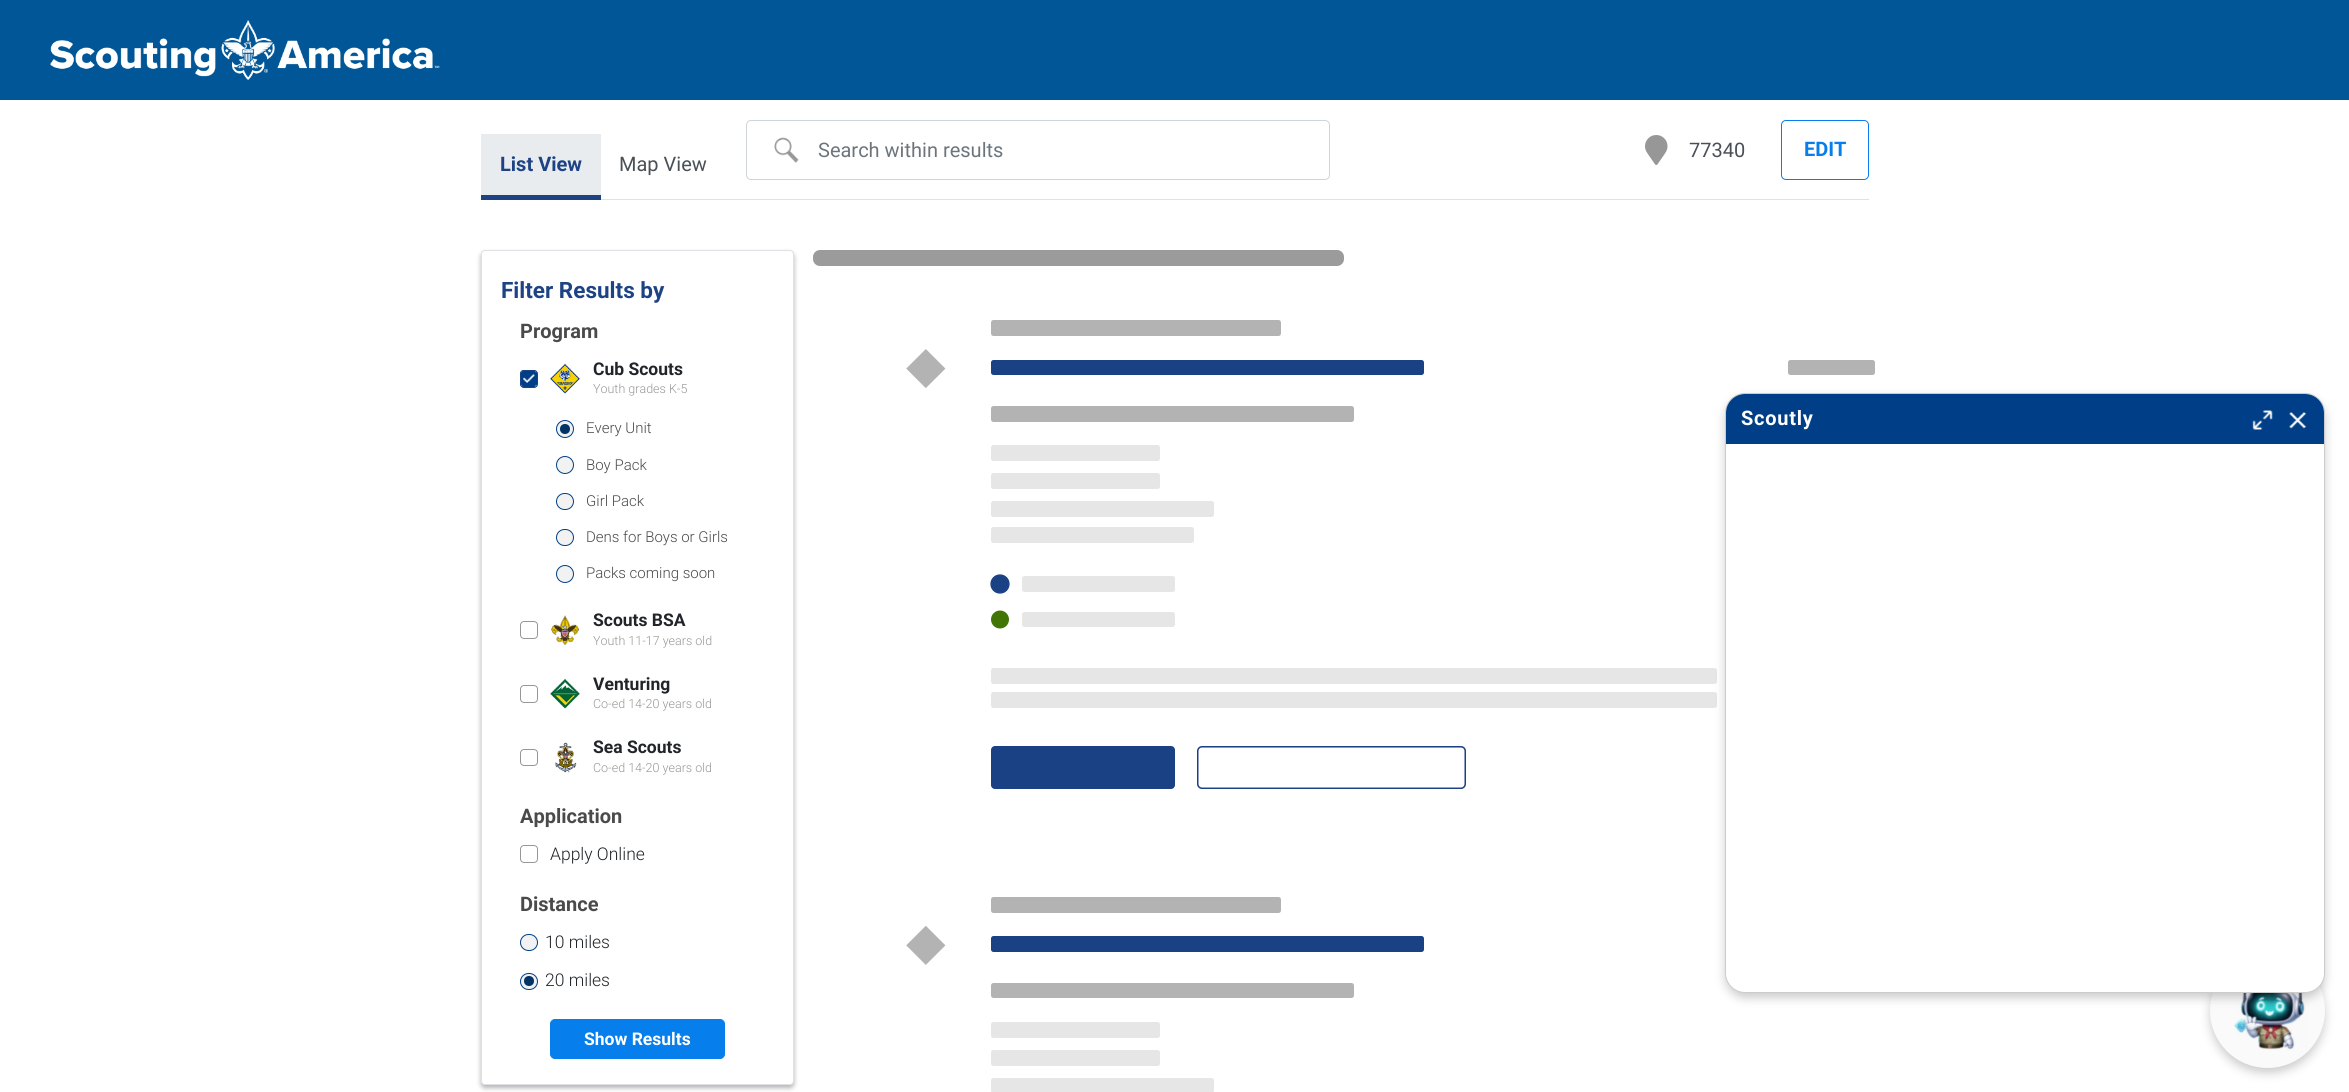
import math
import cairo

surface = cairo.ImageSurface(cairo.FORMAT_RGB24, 2349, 1092)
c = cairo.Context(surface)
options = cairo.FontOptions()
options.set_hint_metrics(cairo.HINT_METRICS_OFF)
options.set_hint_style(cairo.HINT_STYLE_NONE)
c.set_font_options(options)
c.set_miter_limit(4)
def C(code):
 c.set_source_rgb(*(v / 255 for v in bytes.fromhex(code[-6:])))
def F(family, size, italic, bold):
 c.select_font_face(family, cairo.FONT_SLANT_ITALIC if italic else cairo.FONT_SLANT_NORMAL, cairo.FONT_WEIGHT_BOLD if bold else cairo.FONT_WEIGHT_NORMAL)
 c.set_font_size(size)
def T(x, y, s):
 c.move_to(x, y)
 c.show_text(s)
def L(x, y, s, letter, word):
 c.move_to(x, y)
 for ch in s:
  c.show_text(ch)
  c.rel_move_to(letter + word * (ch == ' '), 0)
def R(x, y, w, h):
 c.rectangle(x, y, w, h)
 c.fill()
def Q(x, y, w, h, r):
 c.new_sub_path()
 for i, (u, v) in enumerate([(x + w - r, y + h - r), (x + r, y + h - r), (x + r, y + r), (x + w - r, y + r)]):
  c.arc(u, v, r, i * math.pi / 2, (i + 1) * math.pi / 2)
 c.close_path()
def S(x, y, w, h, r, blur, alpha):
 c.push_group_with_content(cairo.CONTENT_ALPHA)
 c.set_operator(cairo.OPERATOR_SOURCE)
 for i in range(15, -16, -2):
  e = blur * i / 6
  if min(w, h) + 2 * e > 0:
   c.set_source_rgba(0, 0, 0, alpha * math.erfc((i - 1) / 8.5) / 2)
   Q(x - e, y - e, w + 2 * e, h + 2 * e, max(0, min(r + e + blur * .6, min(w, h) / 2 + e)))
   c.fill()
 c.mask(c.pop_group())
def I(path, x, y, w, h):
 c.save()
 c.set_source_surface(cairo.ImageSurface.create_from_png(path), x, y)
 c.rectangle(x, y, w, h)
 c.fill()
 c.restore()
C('ffffff')
c.paint()
C('005696')
R(0,0,2349,100)
I('1.png',50,20,390,60)
C('dee2e6')
R(601,199,1268,1)
I('2.png',774,137,25,26)
Q(746.5,120.5,583,59,4.5)
C('ced4da')
c.set_line_width(1)
c.stroke()
F('Roboto',20,0,0)
C('6c757d')
T(818,157,'Search within results')
I('3.png',1645,135,23,30)
C('495057')
T(1689,157,'77340')
Q(1781.5,120.5,87,59,4.5)
C('067eeb')
c.stroke()
F('Roboto',20,0,1)
T(1804,156,'EDIT')
C('e9ecef')
R(481,134,120,61)
C('1e4384')
R(481,195,120,5)
T(500,171,'List View')
F('Roboto',20,0,0)
C('495057')
T(619,171,'Map View')
C('000000')
S(481,253,313,835,4,2.5,.3)
C('ffffff')
Q(481.5,250.5,312,834,3.5)
c.fill_preserve()
C('dee2e6')
c.stroke()
F('Roboto',22.5,0,1)
C('1e4384')
T(501,298,'Filter Results by')
F('Roboto',20,0,1)
C('4a4a4a')
T(520,338,'Program')
I('4.png',520,370,18,18)
Q(520.5,370.5,17,17,3.5)
C('1e4384')
c.stroke()
I('5.png',550,363,30,31)
F('Roboto',17.5,0,1)
C('212529')
T(593,375,'Cub Scouts')
F('Roboto Light',12.5,0,0)
C('969897')
T(593,393,'Youth grades K-5')
C('f0f0f0')
c.new_path()
c.arc(565,429,8.5,0,2 * math.pi)
c.fill_preserve()
C('003f87')
c.stroke()
C('003366')
c.arc(565,429,5,0,2 * math.pi)
c.fill()
F('Roboto Light',15,0,0)
C('4a4a4a')
T(586,433,'Every Unit')
C('f2f2f2')
c.new_path()
c.arc(565,465,8.5,0,2 * math.pi)
c.fill_preserve()
C('003f87')
c.stroke()
C('4a4a4a')
T(586,470,'Boy Pack')
C('f2f2f2')
Q(556.5,493.5,17,16,8)
c.fill_preserve()
C('003f87')
c.stroke()
C('4a4a4a')
T(586,506,'Girl Pack')
C('f2f2f2')
Q(556.5,529.5,17,16,8)
c.fill_preserve()
C('003f87')
c.stroke()
C('4a4a4a')
T(586,542,'Dens for Boys or Girls')
C('f2f2f2')
c.new_path()
c.arc(565,574,8.5,0,2 * math.pi)
c.fill_preserve()
C('003f87')
c.stroke()
C('4a4a4a')
T(586,578,'Packs coming soon')
Q(520.5,621.5,17,17,3.5)
C('979797')
c.stroke()
I('6.png',551,615,28,30)
F('Roboto',17.5,0,1)
C('212529')
T(593,626,'Scouts BSA')
F('Roboto Light',12.5,0,0)
C('969897')
T(593,645,'Youth 11-17 years old')
Q(520.5,685.5,17,17,3.5)
C('979797')
c.stroke()
I('7.png',550,678,30,31)
F('Roboto',17.5,0,1)
C('212529')
T(593,690,'Venturing')
F('Roboto Light',12.5,0,0)
C('969897')
T(593,708,'Co-ed 14-20 years old')
Q(520.5,749.5,17,16,3.5)
C('979797')
c.stroke()
I('8.png',555,742,22,31)
F('Roboto',17.5,0,1)
C('212529')
T(593,753,'Sea Scouts')
F('Roboto Light',12.5,0,0)
C('969897')
T(593,772,'Co-ed 14-20 years old')
F('Roboto',20,0,1)
C('4a4a4a')
T(520,823,'Application')
Q(520.5,845.5,17,17,3.5)
C('979797')
c.stroke()
F('Roboto Light',17.5,0,0)
C('212529')
T(550,860,'Apply Online')
F('Roboto',20,0,1)
C('4a4a4a')
T(520,911,'Distance')
C('f2f2f2')
Q(520.5,934.5,17,16,8)
c.fill_preserve()
C('003f87')
c.stroke()
F('Roboto Light',17.5,0,0)
C('212529')
T(545,948,'10 miles')
C('f0f0f0')
Q(520.5,973.5,17,16,8)
c.fill_preserve()
C('003f87')
c.stroke()
C('003366')
c.arc(529,981,5,0,2 * math.pi)
c.fill()
C('212529')
T(545,986,'20 miles')
C('067eeb')
Q(550.5,1019.5,174,39,4.5)
c.fill_preserve()
c.stroke()
F('Roboto',17.5,0,1)
C('ffffff')
T(584,1045,'Show Results')
I('9.png',813,250,1062,842)
C('000000')
S(2210,958,115,115,57.5,5,.2)
C('fafafa')
c.arc(2267.5,1010.5,57.5,0,2 * math.pi)
c.fill()
I('12.png',2234,992,75,60)
C('000000')
S(1725,398,600,600,20,5,.2)
C('ffffff')
Q(1725.5,393.5,599,599,19.5)
c.fill_preserve()
C('cccccc')
c.stroke()
C('003f87')
c.new_path()
c.move_to(1745,394)
c.line_to(2305,394)
c.curve_to(2315.5,394,2324,402.5,2324,413)
c.line_to(2324,444)
c.line_to(1726,444)
c.line_to(1726,413)
c.curve_to(1726,402.5,1734.5,394,1745,394)
c.close_path()
c.fill()
F('Roboto',20,0,1)
C('ffffff')
L(1741,425,'Scoutly',.75,0)
I('10.png',2252,410,21,20)
I('11.png',2289,412,18,17)
surface.write_to_png('o.png')
